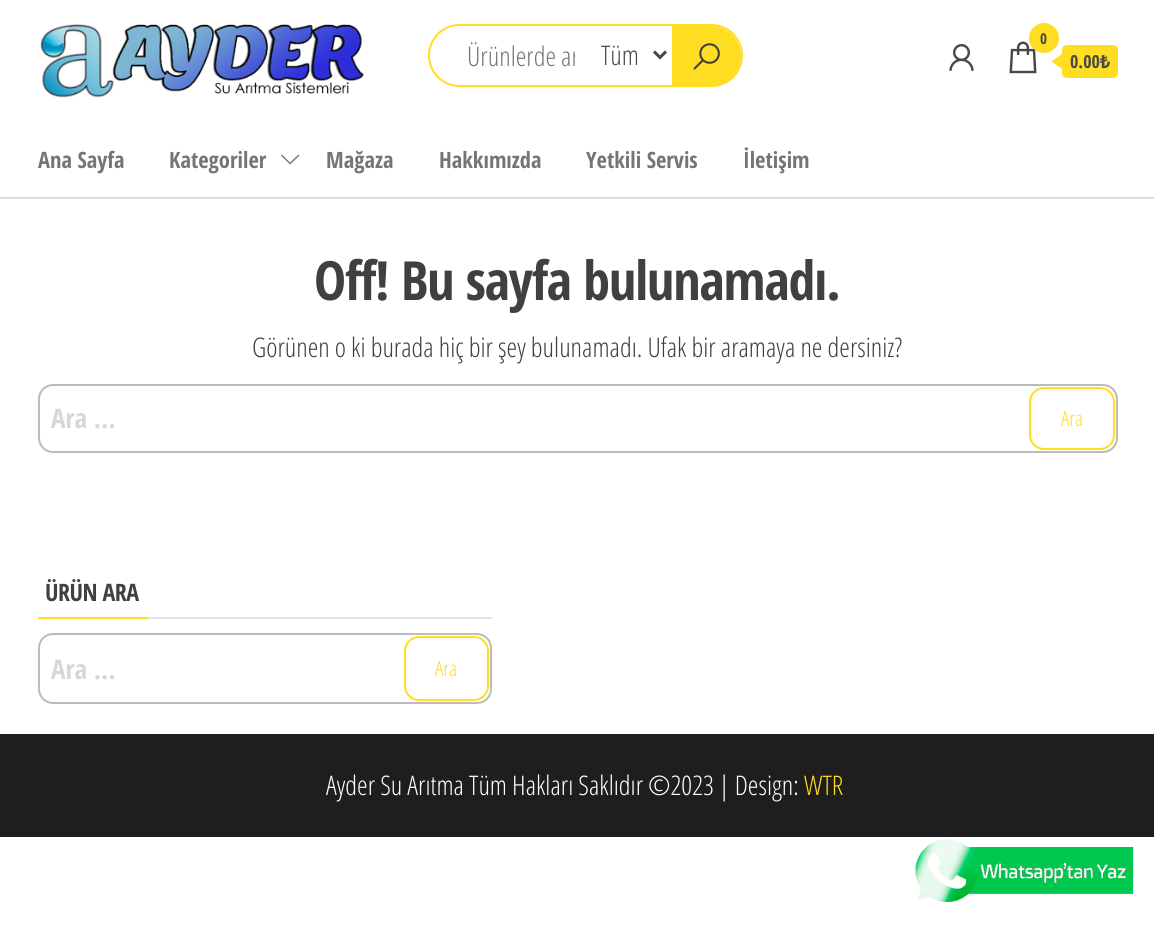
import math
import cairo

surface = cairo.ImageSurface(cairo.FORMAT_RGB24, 1154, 938)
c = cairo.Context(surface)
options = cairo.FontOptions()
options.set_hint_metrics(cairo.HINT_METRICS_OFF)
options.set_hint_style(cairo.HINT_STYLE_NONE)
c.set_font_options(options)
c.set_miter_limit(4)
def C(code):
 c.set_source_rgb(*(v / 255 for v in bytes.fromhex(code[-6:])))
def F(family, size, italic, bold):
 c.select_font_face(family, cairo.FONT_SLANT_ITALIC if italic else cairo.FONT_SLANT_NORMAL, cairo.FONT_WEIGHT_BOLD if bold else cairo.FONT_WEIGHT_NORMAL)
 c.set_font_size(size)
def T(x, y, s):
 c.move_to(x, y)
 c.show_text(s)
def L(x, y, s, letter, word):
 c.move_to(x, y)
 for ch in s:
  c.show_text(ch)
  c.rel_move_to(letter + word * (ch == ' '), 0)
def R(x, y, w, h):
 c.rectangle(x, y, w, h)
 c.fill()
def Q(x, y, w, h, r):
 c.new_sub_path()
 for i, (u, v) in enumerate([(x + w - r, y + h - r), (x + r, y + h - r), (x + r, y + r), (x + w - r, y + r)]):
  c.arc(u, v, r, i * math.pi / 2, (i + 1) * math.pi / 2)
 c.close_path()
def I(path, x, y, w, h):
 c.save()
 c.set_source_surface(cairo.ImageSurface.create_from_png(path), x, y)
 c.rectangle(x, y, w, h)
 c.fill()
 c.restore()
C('ffffff')
c.paint()
I('1.png',40,24,324,74)
Q(429,25,313,61,30.5)
C('ffdd22')
c.stroke()
c.save()
c.rectangle(467,38,108,36)
c.clip()
F('Open Sans Condensed Light',27,0,0)
C('757575')
T(467,66,'Ürünlerde ar')
c.restore()
c.new_path()
c.move_to(654,51.5)
c.line_to(660,57.5)
c.line_to(666,51.5)
C('484848')
c.set_line_width(3)
c.stroke()
F('Open Sans Condensed Light',27,0,0)
T(601,65,'Tüm')
C('ffdd22')
c.new_path()
c.move_to(672,26)
c.line_to(711,26)
c.curve_to(727.5,26,741,39.5,741,56)
c.curve_to(741,72.5,727.5,86,711,86)
c.line_to(672,86)
c.close_path()
c.fill()
I('2.png',693,43,27,27)
I('3.png',949,44,25,27)
I('4.png',1009,41,28,33)
c.arc(1044,38,15,0,2 * math.pi)
c.fill()
F('Open Sans Condensed',15,0,1)
C('484848')
T(1040,44,'0')
C('ffdd22')
Q(1062,45,56,33,5)
c.fill()
c.new_path()
c.move_to(1062,54)
c.line_to(1062,69)
c.line_to(1051.5,61.5)
c.close_path()
c.fill()
F('Open Sans Condensed',18,0,1)
C('484848')
T(1070,68,'0.00')
F('Noto Sans',18,0,1)
T(1100,68,'₺')
C('dddddd')
R(0,197,1154,2)
F('Open Sans Condensed',22.5,0,1)
C('757575')
T(38,168,'Ana Sayfa')
T(169,168,'Kategoriler')
C('777777')
c.new_path()
c.move_to(282,154.5)
c.line_to(281,155.5)
c.line_to(290,164.5)
c.line_to(299.5,155.5)
c.line_to(298.5,154.5)
c.line_to(290,162.5)
c.close_path()
c.fill()
C('757575')
T(326,168,'Mağaza')
T(439,168,'Hakkımızda')
T(586,168,'Yetkili Servis')
T(743,168,'İletişim')
F('Open Sans Condensed',54,0,1)
C('404040')
L(314,300,'Off! Bu sayfa bulunamadı.',-1.1,0)
F('Open Sans Condensed Light',27,0,0)
T(252,357,'Görünen o ki burada hiç bir şey bulunamadı. Ufak bir aramaya ne dersiniz?')
Q(39,385,1078,67,14)
C('bbbbbb')
c.set_line_width(2)
c.stroke()
F('Open Sans Condensed',27,0,1)
C('d7d7d7')
T(51,428,'Ara …')
Q(1030,388,84,61,14)
C('ffdd22')
c.stroke()
F('Open Sans Condensed Light',21,0,0)
T(1061,426,'Ara')
C('e2e2e2')
R(147,617,345,2)
F('Open Sans Condensed',24,0,1)
C('404040')
L(45,601,'ÜRÜN ARA',-.5,0)
C('ffdd22')
R(38,617,109,2)
Q(39,634,452,69,14)
C('bbbbbb')
c.stroke()
F('Open Sans Condensed',27,0,1)
C('d7d7d7')
T(51,679,'Ara …')
Q(405,637,83,63,14)
C('ffdd22')
c.stroke()
F('Open Sans Condensed Light',21,0,0)
T(435,676,'Ara')
C('1e1e1e')
R(0,734,1154,103)
F('Open Sans Condensed Light',27,0,0)
C('ffffff')
T(326,795,'Ayder Su Arıtma Tüm Hakları Saklıdır ©2023 | Design:')
C('ffdd22')
T(804,795,'WTR')
I('5.png',915,839,219,63)
surface.write_to_png('o.png')
